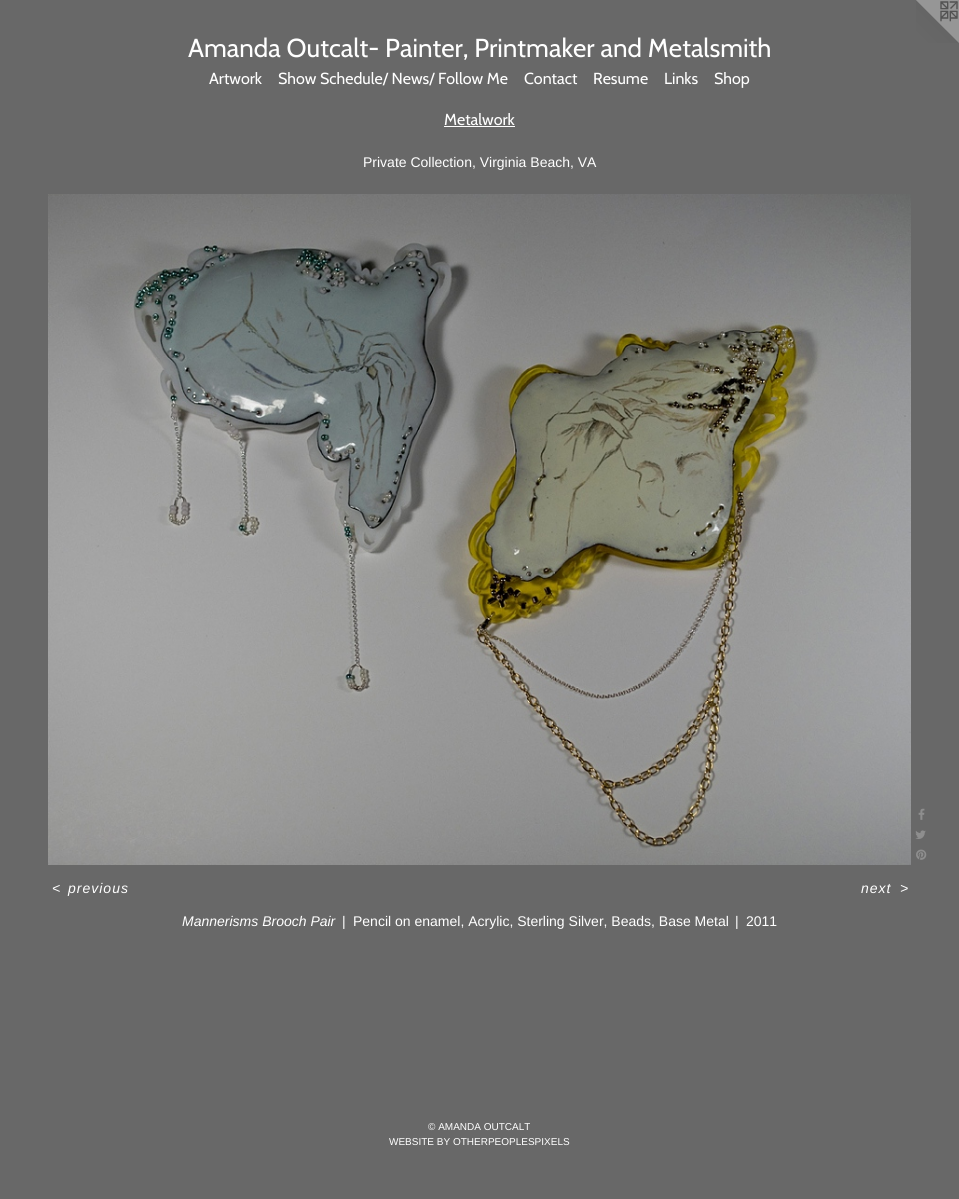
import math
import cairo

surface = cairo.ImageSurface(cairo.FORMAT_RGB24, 959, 1199)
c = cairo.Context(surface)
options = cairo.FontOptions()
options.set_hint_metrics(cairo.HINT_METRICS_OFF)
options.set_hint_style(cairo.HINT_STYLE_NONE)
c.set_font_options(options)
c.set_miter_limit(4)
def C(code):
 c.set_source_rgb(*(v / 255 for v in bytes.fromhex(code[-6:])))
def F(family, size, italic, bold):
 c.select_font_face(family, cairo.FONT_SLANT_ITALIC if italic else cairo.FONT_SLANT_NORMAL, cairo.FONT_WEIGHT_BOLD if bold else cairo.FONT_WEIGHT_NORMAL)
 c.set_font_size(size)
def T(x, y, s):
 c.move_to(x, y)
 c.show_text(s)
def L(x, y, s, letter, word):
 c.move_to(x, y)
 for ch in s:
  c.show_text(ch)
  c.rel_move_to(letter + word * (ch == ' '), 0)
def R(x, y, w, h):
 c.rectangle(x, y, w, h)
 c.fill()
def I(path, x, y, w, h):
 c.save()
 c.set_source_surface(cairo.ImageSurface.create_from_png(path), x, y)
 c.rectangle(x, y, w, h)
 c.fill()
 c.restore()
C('686868')
c.paint()
I('1.png',916,0,43,43)
F('Cabin',26,0,0)
C('ffffff')
T(188,57,'Amanda Outcalt- Painter, Printmaker and Metalsmith')
F('Cabin',16,0,0)
T(209,84,'Artwork')
T(278,84,'Show Schedule/ News/ Follow Me')
T(524,84,'Contact')
T(593,84,'Resume')
T(664,84,'Links')
T(714,84,'Shop')
T(444,125,'Metalwork')
R(444,126,71,1)
F('Liberation Sans',14,0,0)
T(363,167,'Private Collection, Virginia Beach, VA')
I('2.png',48,194,863,671)
I('3.png',918,808,7,12)
I('4.png',915,830,11,9)
I('5.png',916,849,11,11)
F('Liberation Sans',14,1,0)
L(52,893,'<',1,0)
L(68,893,'previous',1,0)
L(861,893,'next',1,0)
L(900,893,'>',1,0)
T(182,926,'Mannerisms Brooch Pair')
F('Liberation Sans',14,0,0)
T(342,926,'|')
T(353,926,'Pencil on enamel, Acrylic, Sterling Silver, Beads, Base Metal')
T(735,926,'|')
T(746,926,'2011')
F('Liberation Sans',10,0,0)
T(428,1130,'© AMANDA OUTCALT')
T(389,1145,'WEBSITE BY OTHERPEOPLESPIXELS')
surface.write_to_png('o.png')
